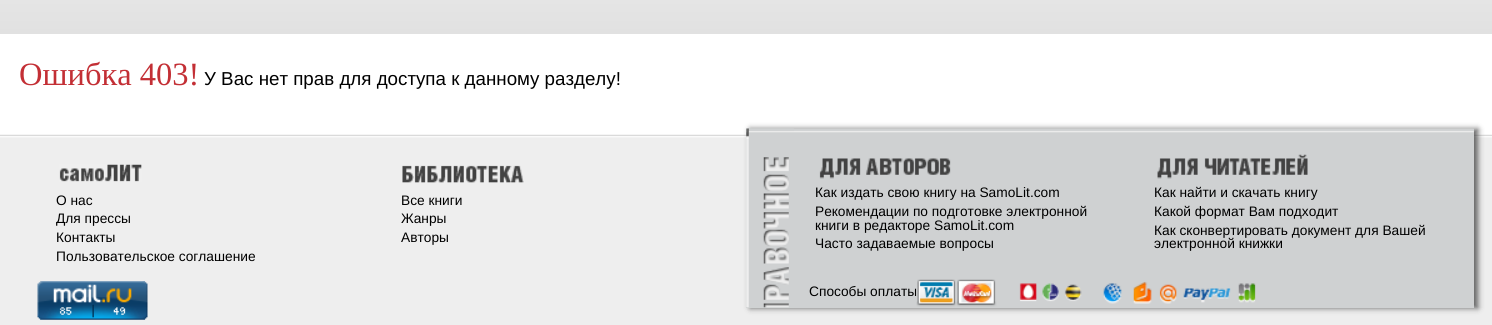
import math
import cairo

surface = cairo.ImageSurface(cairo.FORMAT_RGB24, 1492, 325)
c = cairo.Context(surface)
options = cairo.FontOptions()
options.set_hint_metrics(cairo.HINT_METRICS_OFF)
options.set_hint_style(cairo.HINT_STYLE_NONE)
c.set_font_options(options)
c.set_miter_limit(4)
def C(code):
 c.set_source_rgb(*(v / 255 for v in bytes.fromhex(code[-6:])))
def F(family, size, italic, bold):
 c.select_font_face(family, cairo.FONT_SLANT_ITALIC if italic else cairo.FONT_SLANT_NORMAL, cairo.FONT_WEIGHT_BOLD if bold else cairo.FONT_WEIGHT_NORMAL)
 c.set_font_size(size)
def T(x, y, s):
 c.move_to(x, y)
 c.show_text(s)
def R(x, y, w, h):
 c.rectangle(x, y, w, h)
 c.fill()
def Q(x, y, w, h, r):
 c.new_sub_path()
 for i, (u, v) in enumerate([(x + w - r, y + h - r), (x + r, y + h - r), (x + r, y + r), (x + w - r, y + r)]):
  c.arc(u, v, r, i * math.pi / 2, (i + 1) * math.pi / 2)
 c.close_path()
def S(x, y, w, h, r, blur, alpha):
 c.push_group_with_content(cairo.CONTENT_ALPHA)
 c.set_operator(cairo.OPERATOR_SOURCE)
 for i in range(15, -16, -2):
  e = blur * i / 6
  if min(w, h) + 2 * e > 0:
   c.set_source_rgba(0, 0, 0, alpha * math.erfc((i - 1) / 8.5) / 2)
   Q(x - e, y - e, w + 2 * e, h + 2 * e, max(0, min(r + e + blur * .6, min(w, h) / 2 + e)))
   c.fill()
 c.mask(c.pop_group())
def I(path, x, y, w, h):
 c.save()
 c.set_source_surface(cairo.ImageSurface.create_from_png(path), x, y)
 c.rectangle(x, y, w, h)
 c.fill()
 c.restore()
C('ffffff')
c.paint()
gradient = cairo.LinearGradient(746,34,746,-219)
gradient.add_color_stop_rgba(0,0.882,0.882,0.882,1)
gradient.add_color_stop_rgba(1,1,1,1,1)
c.set_source(gradient)
R(0,0,1492,34)
F('Liberation Serif',32.5,0,0)
C('c32f35')
T(19,85,'Ошибка 403!')
F('Liberation Sans',18.75,0,0)
C('000000')
T(204,85,'У Вас нет прав для доступа к данному разделу!')
C('eeeeee')
R(0,138,1492,187)
I('1.png',0,134,1492,4)
I('2.png',59,164,83,18)
F('Liberation Sans',13.75,0,0)
C('000000')
T(56,205,'О нас')
T(56,223,'Для прессы')
T(56,242,'Контакты')
T(56,261,'Пользовательское соглашение')
I('3.png',402,165,122,18)
T(401,205,'Все книги')
T(401,223,'Жанры')
T(401,242,'Авторы')
I('4.png',37,281,111,39)
C('323232')
S(750,129,728,179,0,3,.75)
C('cfd1d2')
R(746,129,728,179)
I('5.png',746,128,728,180)
I('6.png',819,158,132,21)
C('000000')
T(815,197,'Как издать свою книгу на SamoLit.com')
T(815,216,'Рекомендации по подготовке электронной')
T(815,230,'книги в редакторе SamoLit.com')
T(815,248,'Часто задаваемые вопросы')
I('7.png',1157,154,151,25)
T(1154,197,'Как найти и скачать книгу')
T(1154,216,'Какой формат Вам подходит')
T(1154,235,'Как сконвертировать документ для Вашей')
T(1154,248,'электронной книжки')
T(809,296,'Способы оплаты')
I('8.png',916,279,340,28)
surface.write_to_png('o.png')
